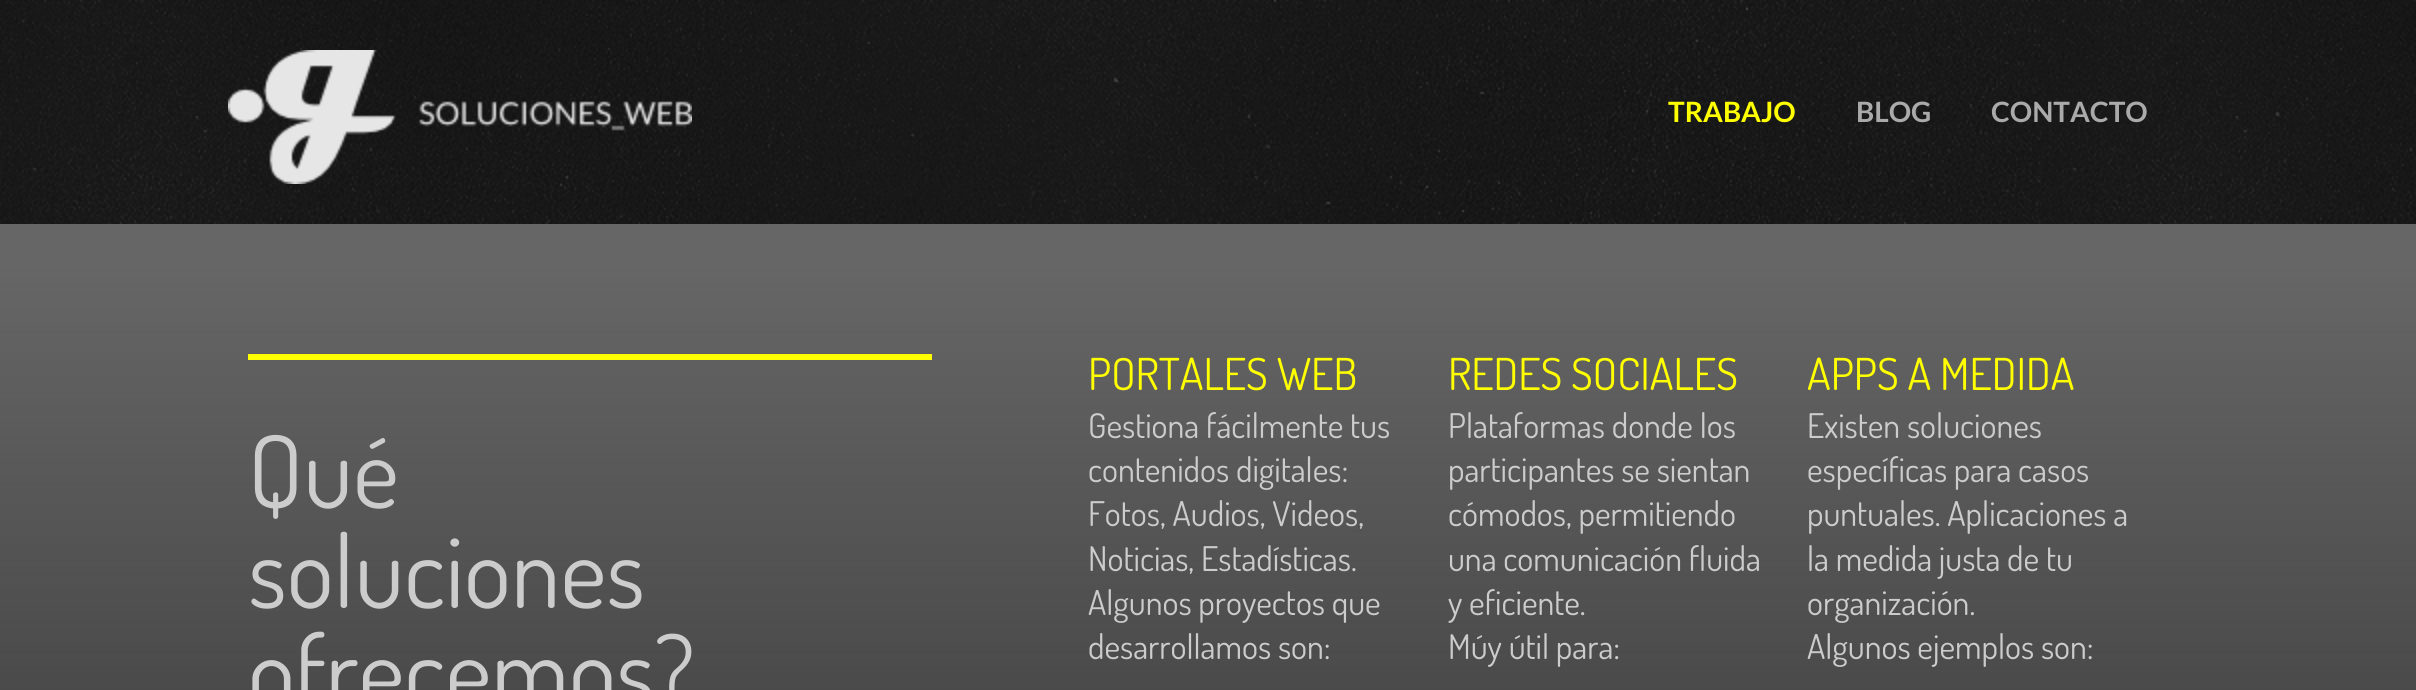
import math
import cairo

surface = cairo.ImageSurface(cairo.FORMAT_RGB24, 2416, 690)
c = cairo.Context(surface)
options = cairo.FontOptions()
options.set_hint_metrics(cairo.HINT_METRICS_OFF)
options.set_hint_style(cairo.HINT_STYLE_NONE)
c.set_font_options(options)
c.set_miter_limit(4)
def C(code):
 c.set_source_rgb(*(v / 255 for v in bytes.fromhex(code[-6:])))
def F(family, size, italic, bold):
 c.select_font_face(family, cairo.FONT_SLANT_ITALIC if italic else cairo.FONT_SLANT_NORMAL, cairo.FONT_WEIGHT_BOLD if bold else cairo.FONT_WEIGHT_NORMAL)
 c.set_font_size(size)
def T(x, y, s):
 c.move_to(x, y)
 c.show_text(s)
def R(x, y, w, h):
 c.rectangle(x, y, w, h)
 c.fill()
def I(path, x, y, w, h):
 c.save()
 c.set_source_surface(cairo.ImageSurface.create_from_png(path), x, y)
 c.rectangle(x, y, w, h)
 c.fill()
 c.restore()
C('111111')
c.paint()
I('1.png',0,0,2416,224)
I('2.png',228,50,464,134)
F('Lato',28,0,1)
C('ffff00')
T(1668,122,'TRABAJO')
C('aaaaaa')
T(1856,122,'BLOG')
T(1991,122,'CONTACTO')
C('333333')
R(0,270,2416,420)
I('3.png',0,224,2416,466)
C('ffff00')
R(248,354,684,6)
F('Dosis',100,0,0)
C('cccccc')
T(248,508,'Qué')
T(248,608,'soluciones')
T(248,708,'ofrecemos?')
F('Dosis',44,0,0)
C('ffff00')
T(1088,390,'PORTALES WEB')
F('Dosis',34,0,0)
C('cccccc')
T(1088,438,'Gestiona fácilmente tus')
T(1088,482,'contenidos digitales:')
T(1088,526,'Fotos, Audios, Videos,')
T(1088,571,'Noticias, Estadísticas.')
T(1088,615,'Algunos proyectos que')
T(1088,659,'desarrollamos son:')
F('Dosis',44,0,0)
C('ffff00')
T(1448,390,'REDES SOCIALES')
F('Dosis',34,0,0)
C('cccccc')
T(1448,438,'Plataformas donde los')
T(1448,482,'participantes se sientan')
T(1448,526,'cómodos, permitiendo')
T(1448,571,'una comunicación fluida')
T(1448,615,'y eficiente.')
T(1448,659,'Múy útil para:')
F('Dosis',44,0,0)
C('ffff00')
T(1807,390,'APPS A MEDIDA')
F('Dosis',34,0,0)
C('cccccc')
T(1807,438,'Existen soluciones')
T(1807,482,'específicas para casos')
T(1807,526,'puntuales. Aplicaciones a')
T(1807,571,'la medida justa de tu')
T(1807,615,'organización.')
T(1807,659,'Algunos ejemplos son:')
surface.write_to_png('o.png')
